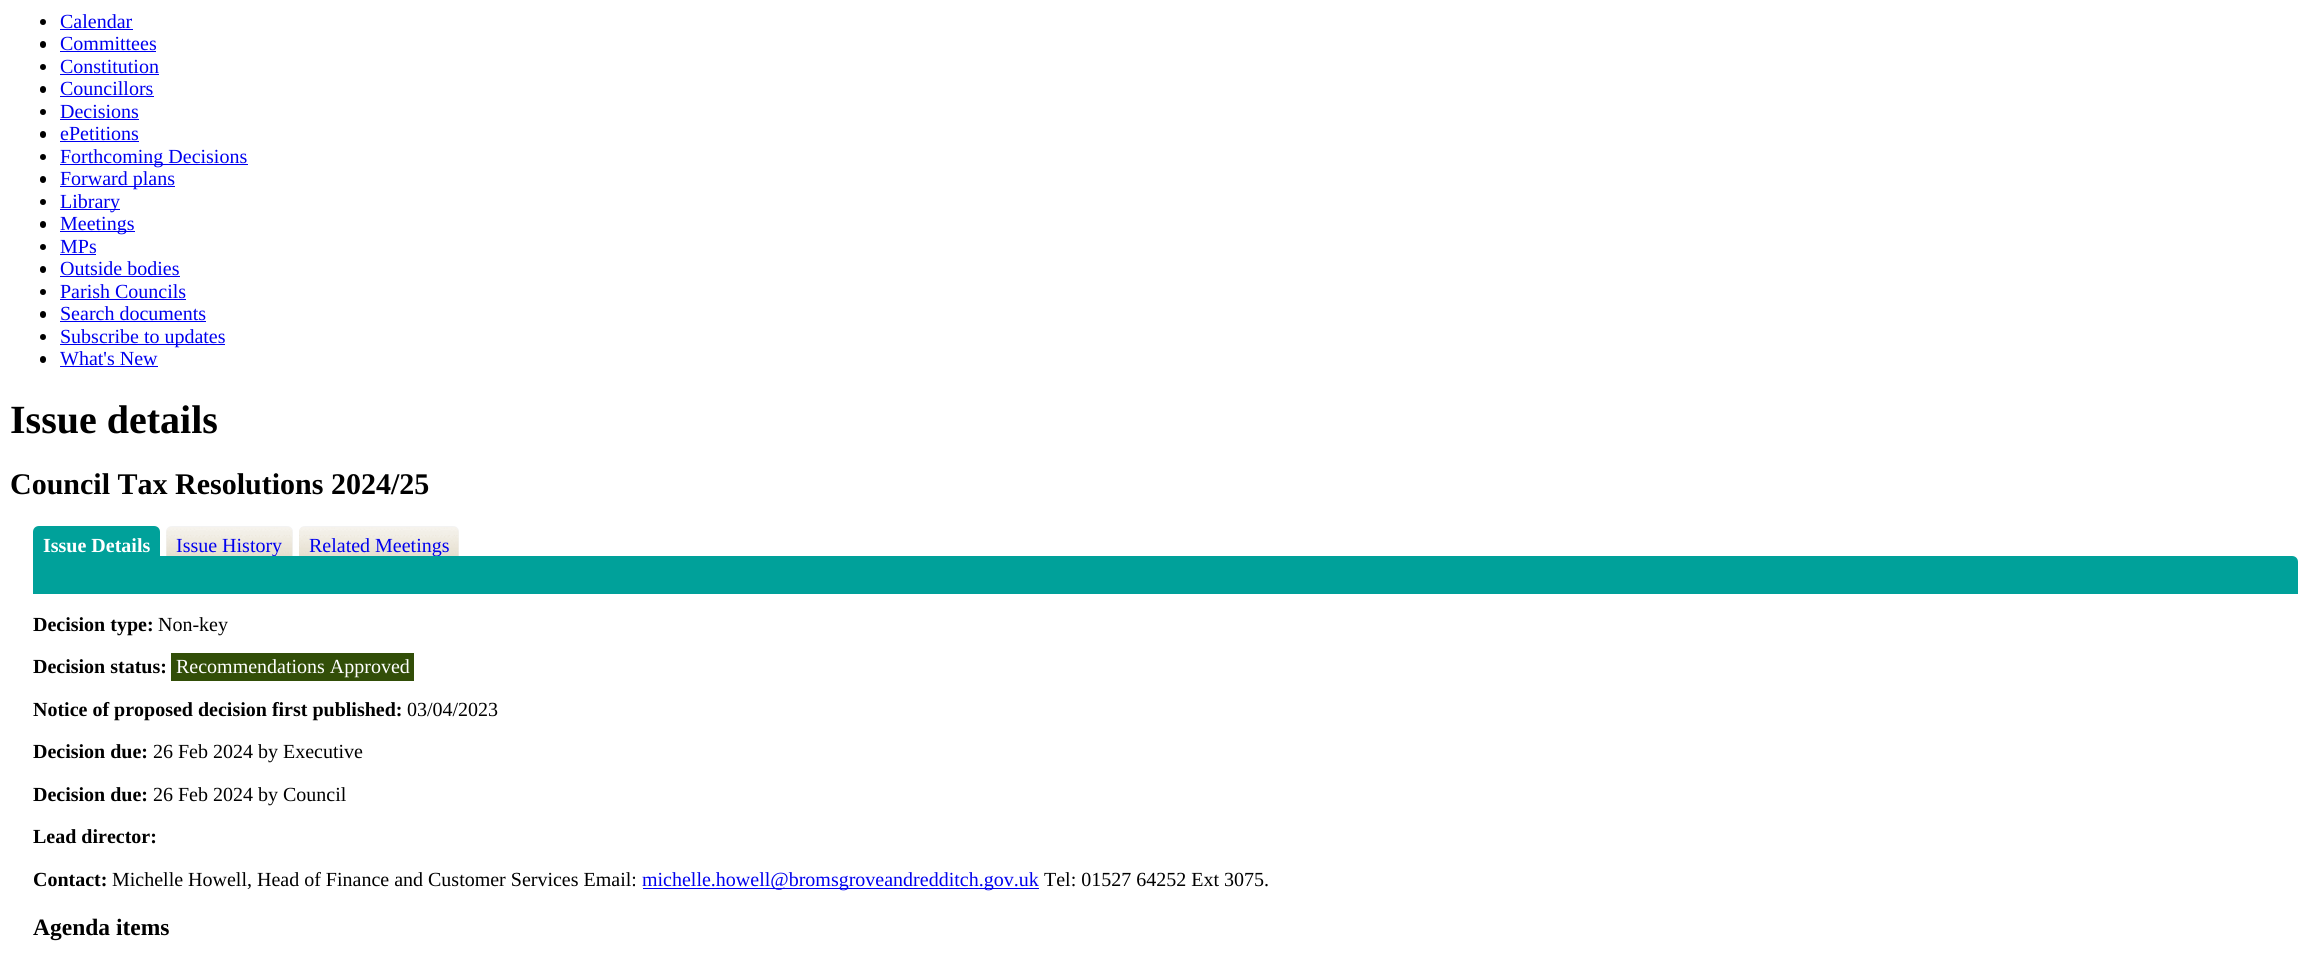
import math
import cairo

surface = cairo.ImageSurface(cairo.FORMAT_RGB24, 2307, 973)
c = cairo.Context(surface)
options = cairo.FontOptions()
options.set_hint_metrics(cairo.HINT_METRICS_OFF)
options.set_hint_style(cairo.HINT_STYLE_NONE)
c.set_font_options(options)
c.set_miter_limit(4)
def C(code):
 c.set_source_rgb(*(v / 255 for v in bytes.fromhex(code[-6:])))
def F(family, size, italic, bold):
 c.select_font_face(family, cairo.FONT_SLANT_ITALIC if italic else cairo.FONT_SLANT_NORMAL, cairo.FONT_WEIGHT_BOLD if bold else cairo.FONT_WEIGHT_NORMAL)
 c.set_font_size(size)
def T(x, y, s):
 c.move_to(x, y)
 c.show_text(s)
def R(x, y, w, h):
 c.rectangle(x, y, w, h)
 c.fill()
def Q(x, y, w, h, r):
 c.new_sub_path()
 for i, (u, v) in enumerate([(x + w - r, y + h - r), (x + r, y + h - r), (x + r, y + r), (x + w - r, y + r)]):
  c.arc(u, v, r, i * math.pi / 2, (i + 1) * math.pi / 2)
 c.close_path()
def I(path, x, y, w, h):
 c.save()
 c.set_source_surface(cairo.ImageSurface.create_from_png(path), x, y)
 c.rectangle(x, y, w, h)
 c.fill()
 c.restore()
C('ffffff')
c.paint()
C('000000')
c.arc(43,22,3,0,2 * math.pi)
c.fill()
F('Liberation Serif',20,0,0)
C('0000ee')
T(60,28,'Calendar')
R(60,29,73,1)
C('000000')
Q(40,41,6,7,3)
c.fill()
C('0000ee')
T(60,50,'Committees')
R(60,51,96,1)
C('000000')
c.new_path()
c.arc(43,67,3,0,2 * math.pi)
c.fill()
C('0000ee')
T(60,73,'Constitution')
R(60,74,99,1)
C('000000')
Q(40,86,6,7,3)
c.fill()
C('0000ee')
T(60,95,'Councillors')
R(60,96,94,1)
C('000000')
c.new_path()
c.arc(43,112,3,0,2 * math.pi)
c.fill()
C('0000ee')
T(60,118,'Decisions')
R(60,119,79,1)
C('000000')
Q(40,131,6,7,3)
c.fill()
C('0000ee')
T(60,140,'ePetitions')
R(60,141,79,1)
C('000000')
c.new_path()
c.arc(43,157,3,0,2 * math.pi)
c.fill()
C('0000ee')
R(60,164,188,1)
T(60,163,'Forthcoming Decisions')
C('000000')
Q(40,176,6,7,3)
c.fill()
C('0000ee')
R(60,186,115,1)
T(60,185,'Forward plans')
C('000000')
c.new_path()
c.arc(43,202,3,0,2 * math.pi)
c.fill()
C('0000ee')
R(60,209,60,1)
T(60,208,'Library')
C('000000')
Q(40,221,6,7,3)
c.fill()
C('0000ee')
R(60,231,75,1)
T(60,230,'Meetings')
C('000000')
c.new_path()
c.arc(43,247,3,0,2 * math.pi)
c.fill()
C('0000ee')
T(60,253,'MPs')
R(60,254,36,1)
C('000000')
Q(40,266,6,7,3)
c.fill()
C('0000ee')
T(60,275,'Outside bodies')
R(60,276,120,1)
C('000000')
c.new_path()
c.arc(43,292,3,0,2 * math.pi)
c.fill()
C('0000ee')
T(60,298,'Parish Councils')
R(60,299,126,1)
C('000000')
Q(40,311,6,7,3)
c.fill()
C('0000ee')
T(60,320,'Search documents')
R(60,321,146,1)
C('000000')
c.new_path()
c.arc(43,337,3,0,2 * math.pi)
c.fill()
C('0000ee')
R(60,344,165,1)
T(60,343,'Subscribe to updates')
C('000000')
Q(40,356,6,7,3)
c.fill()
C('0000ee')
T(60,365,'What\'s New')
R(60,366,98,1)
F('Liberation Serif',40,0,1)
C('000000')
T(10,433,'Issue details')
F('Liberation Serif',30,0,1)
T(10,494,'Council Tax Resolutions 2024/25')
C('00a19a')
c.new_path()
c.move_to(39,526)
c.line_to(154,526)
c.curve_to(157.5,526,160,528.5,160,532)
c.line_to(160,556)
c.line_to(33,556)
c.line_to(33,532)
c.curve_to(33,528.5,35.5,526,39,526)
c.close_path()
c.fill()
F('Liberation Serif',20,0,1)
C('ffffff')
T(43,552,'Issue Details')
C('f3f3f3')
c.new_path()
c.move_to(172,526)
c.line_to(287,526)
c.curve_to(290.5,526,293,528.5,293,532)
c.line_to(293,556)
c.line_to(166,556)
c.line_to(166,532)
c.curve_to(166,528.5,168.5,526,172,526)
c.close_path()
c.fill()
I('1.png',166,527,127,29)
c.save()
c.rectangle(33,526,2265,30)
c.clip()
F('Liberation Serif',20,0,0)
C('0000ee')
T(176,552,'Issue History')
c.restore()
c.new_path()
c.move_to(305,526)
c.line_to(453,526)
c.curve_to(456.5,526,459,528.5,459,532)
c.line_to(459,556)
c.line_to(299,556)
c.line_to(299,532)
c.curve_to(299,528.5,301.5,526,305,526)
c.close_path()
c.fill()
I('2.png',299,527,160,29)
c.save()
c.rectangle(33,526,2265,30)
c.clip()
F('Liberation Serif',20,0,0)
C('0000ee')
T(309,552,'Related Meetings')
c.restore()
C('00a19a')
c.new_path()
c.move_to(33,556)
c.line_to(2292,556)
c.curve_to(2295.5,556,2298,558.5,2298,562)
c.line_to(2298,594)
c.line_to(33,594)
c.close_path()
c.fill()
C('000000')
T(33,631,'Decision type:')
F('Liberation Serif',20,0,0)
T(158,631,'Non-key')
F('Liberation Serif',20,0,1)
T(33,673,'Decision status:')
C('324e08')
R(171,653,243,28)
F('Liberation Serif',20,0,0)
C('ffffff')
T(176,673,'Recommendations Approved')
F('Liberation Serif',20,0,1)
C('000000')
T(33,716,'Notice of proposed decision first published:')
F('Liberation Serif',20,0,0)
T(407,716,'03/04/2023')
F('Liberation Serif',20,0,1)
T(33,758,'Decision due:')
F('Liberation Serif',20,0,0)
T(153,758,'26 Feb 2024 by Executive')
F('Liberation Serif',20,0,1)
T(33,801,'Decision due:')
F('Liberation Serif',20,0,0)
T(153,801,'26 Feb 2024 by Council')
F('Liberation Serif',20,0,1)
T(33,843,'Lead director:')
T(33,886,'Contact:')
F('Liberation Serif',20,0,0)
T(112,886,'Michelle Howell, Head of Finance and Customer Services Email:')
C('0000ee')
R(643,888,396,1)
T(642,886,'michelle.howell@bromsgroveandredditch.gov.uk')
C('000000')
T(1044,886,'Tel: 01527 64252 Ext 3075.')
F('Liberation Serif',23.5,0,1)
T(33,935,'Agenda items')
surface.write_to_png('o.png')
